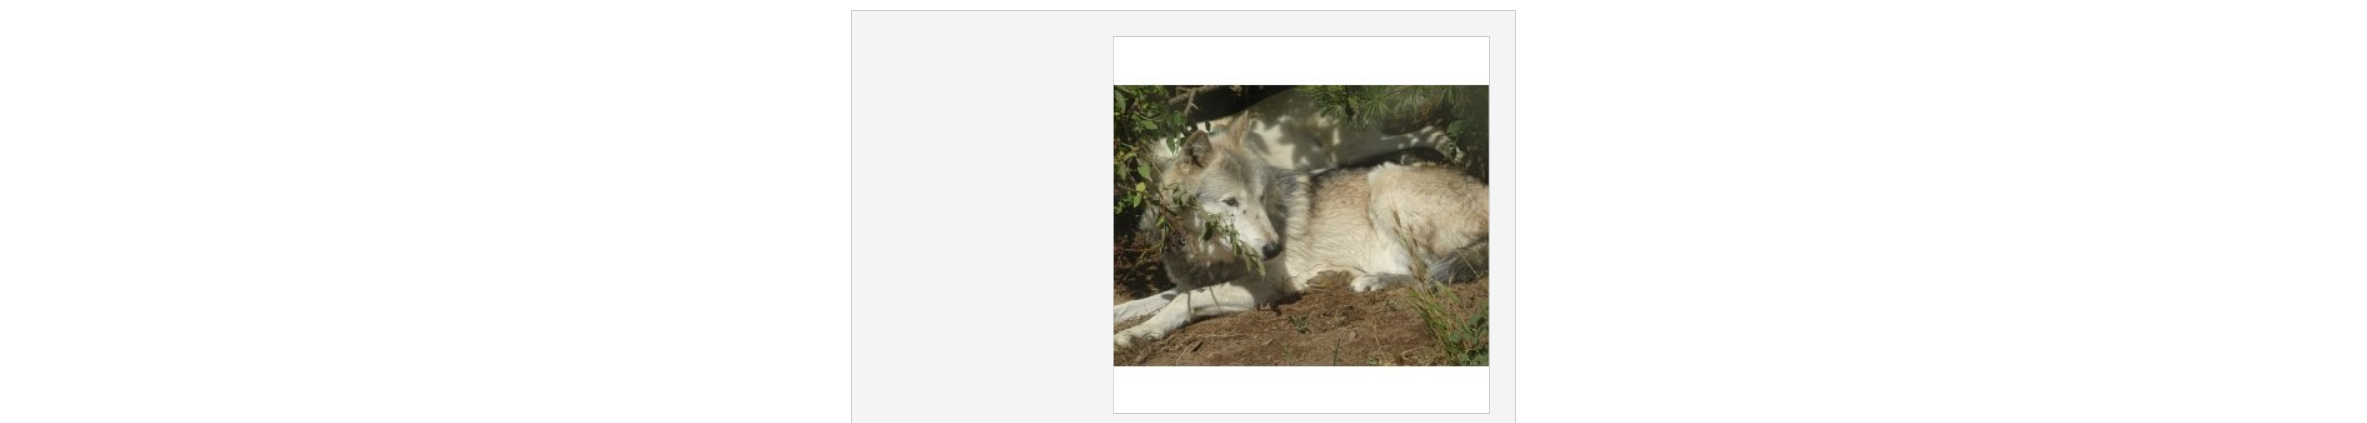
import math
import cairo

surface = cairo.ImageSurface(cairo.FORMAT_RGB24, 2367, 423)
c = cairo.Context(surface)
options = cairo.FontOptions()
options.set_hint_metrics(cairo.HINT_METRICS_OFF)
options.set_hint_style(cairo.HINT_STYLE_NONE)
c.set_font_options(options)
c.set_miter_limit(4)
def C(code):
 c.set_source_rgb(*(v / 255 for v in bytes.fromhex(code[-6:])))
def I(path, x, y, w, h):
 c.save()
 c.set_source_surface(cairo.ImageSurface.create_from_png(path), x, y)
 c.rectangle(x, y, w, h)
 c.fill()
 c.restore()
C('ffffff')
c.paint()
C('f4f4f4')
c.rectangle(851.5,10.5,664,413)
c.fill_preserve()
C('cccccc')
c.set_line_width(1)
c.stroke()
c.rectangle(1113.5,36.5,376,377)
c.stroke()
I('1.png',1113,37,376,376)
surface.write_to_png('o.png')
